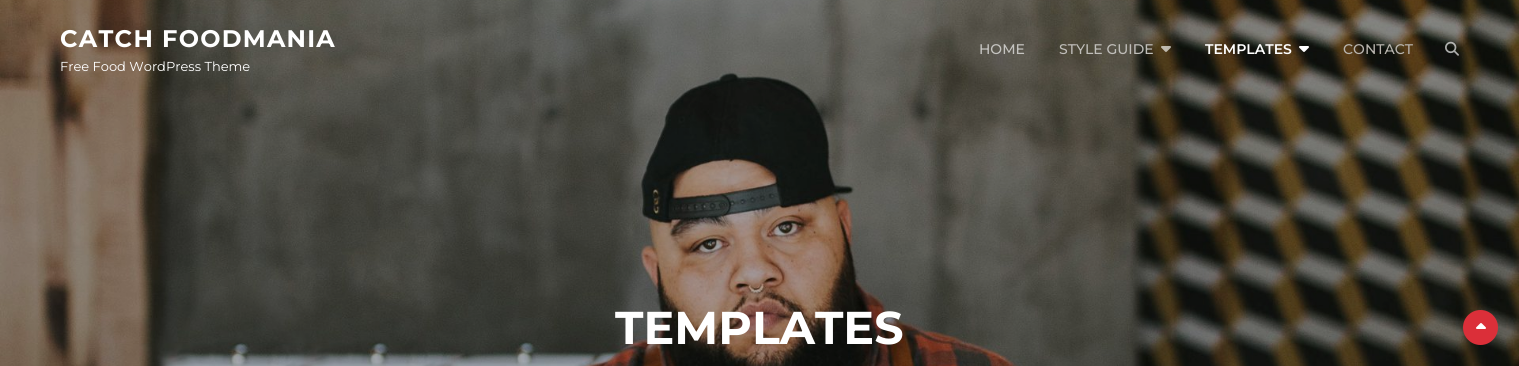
import math
import cairo

surface = cairo.ImageSurface(cairo.FORMAT_RGB24, 1519, 366)
c = cairo.Context(surface)
options = cairo.FontOptions()
options.set_hint_metrics(cairo.HINT_METRICS_OFF)
options.set_hint_style(cairo.HINT_STYLE_NONE)
c.set_font_options(options)
c.set_miter_limit(4)
def C(code):
 c.set_source_rgb(*(v / 255 for v in bytes.fromhex(code[-6:])))
def F(family, size, italic, bold):
 c.select_font_face(family, cairo.FONT_SLANT_ITALIC if italic else cairo.FONT_SLANT_NORMAL, cairo.FONT_WEIGHT_BOLD if bold else cairo.FONT_WEIGHT_NORMAL)
 c.set_font_size(size)
def T(x, y, s):
 c.move_to(x, y)
 c.show_text(s)
def L(x, y, s, letter, word):
 c.move_to(x, y)
 for ch in s:
  c.show_text(ch)
  c.rel_move_to(letter + word * (ch == ' '), 0)
def I(path, x, y, w, h):
 c.save()
 c.set_source_surface(cairo.ImageSurface.create_from_png(path), x, y)
 c.rectangle(x, y, w, h)
 c.fill()
 c.restore()
C('ffffff')
c.paint()
I('4.png',0,0,1519,366)
F('Montserrat Thin',24,0,0)
C('ffffff')
L(60,47,'CATCH FOODMANIA',1.25,0)
F('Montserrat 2 Thin',13,0,0)
T(60,71,'Free Food WordPress Theme')
F('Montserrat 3 Thin',14,0,0)
C('c5c4c1')
T(979,54,'HOME')
C('c0beba')
T(1059,54,'STYLE GUIDE')
I('1.png',1161,46,10,6)
F('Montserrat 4 Thin',14,0,0)
C('ffffff')
T(1205,54,'TEMPLATES')
I('2.png',1299,46,10,6)
F('Montserrat 3 Thin',14,0,0)
C('b7b3ad')
T(1343,54,'CONTACT')
I('3.png',1445,41,14,15)
F('Montserrat Thin',46,0,0)
C('ffffff')
T(615,344,'TEMPLATES')
C('db2f39')
c.new_path()
c.arc(1480.5,327.5,17.5,0,2 * math.pi)
c.fill()
I('5.png',1476,323,10,6)
surface.write_to_png('o.png')
